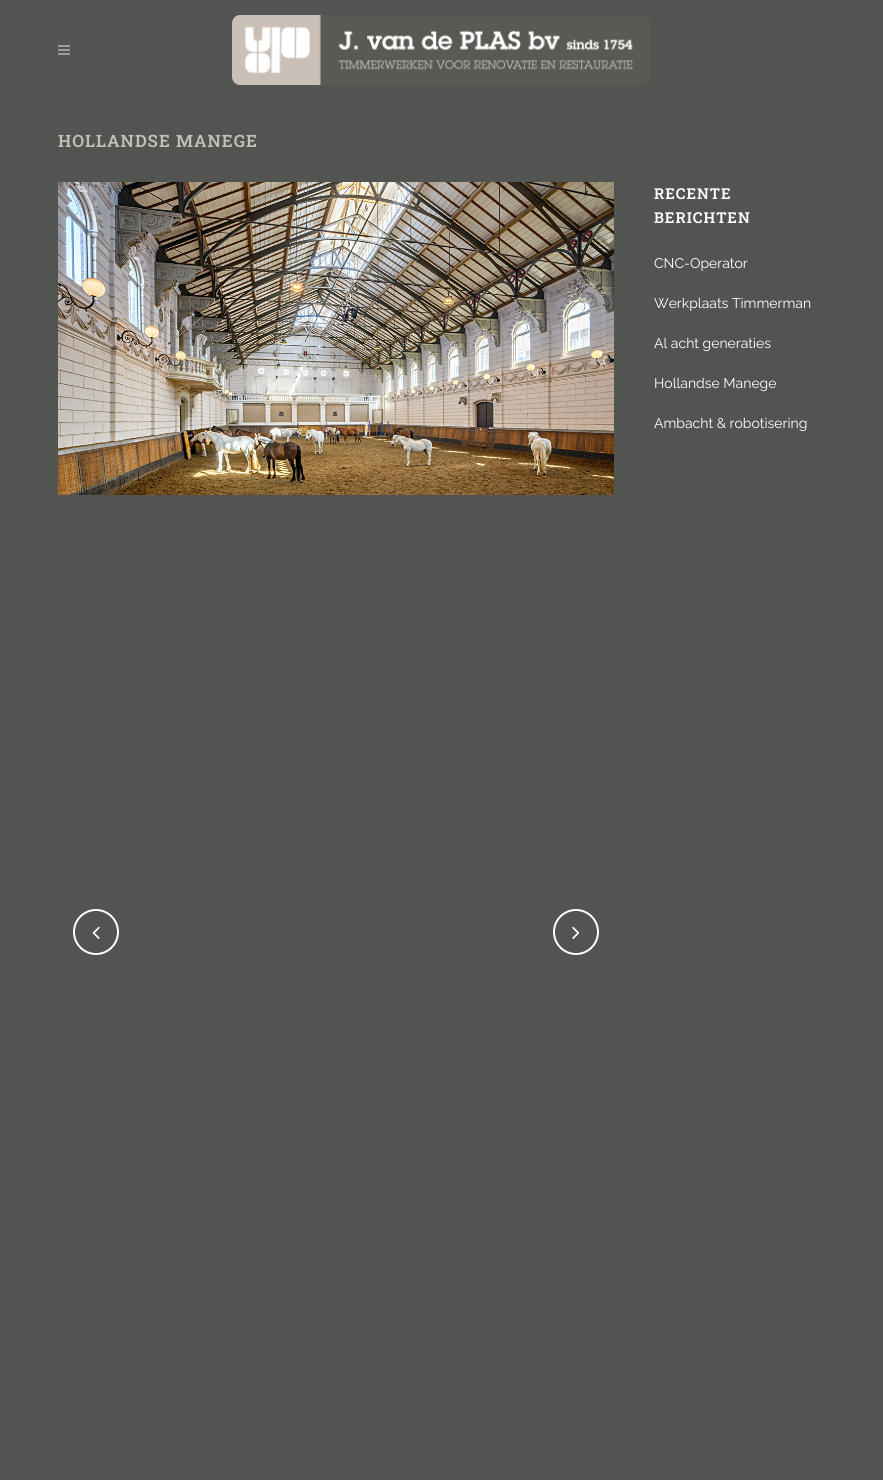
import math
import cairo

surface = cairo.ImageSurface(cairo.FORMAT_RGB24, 883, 1480)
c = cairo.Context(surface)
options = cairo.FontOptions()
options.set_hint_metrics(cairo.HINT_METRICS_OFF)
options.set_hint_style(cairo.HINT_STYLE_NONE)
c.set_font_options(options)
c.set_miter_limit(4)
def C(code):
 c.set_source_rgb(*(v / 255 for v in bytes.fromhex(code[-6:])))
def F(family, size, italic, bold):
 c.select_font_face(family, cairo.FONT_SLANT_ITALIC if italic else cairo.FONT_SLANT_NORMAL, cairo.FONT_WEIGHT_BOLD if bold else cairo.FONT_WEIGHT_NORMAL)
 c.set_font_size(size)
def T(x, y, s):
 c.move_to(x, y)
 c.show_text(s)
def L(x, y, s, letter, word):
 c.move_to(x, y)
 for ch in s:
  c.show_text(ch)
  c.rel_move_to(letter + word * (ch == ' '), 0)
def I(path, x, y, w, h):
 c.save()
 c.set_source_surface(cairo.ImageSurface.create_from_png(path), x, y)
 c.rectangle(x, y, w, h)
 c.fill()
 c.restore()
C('515451')
c.paint()
I('1.png',58,45,12,10)
I('2.png',232,15,419,70)
F('Roboto Slab SemiBold',17,0,0)
C('c4bfb6')
L(58,147,'HOLLANDSE MANEGE',1,0)
I('3.png',58,182,556,313)
c.arc(96,932,22,0,2 * math.pi)
C('ffffff')
c.stroke()
I('4.png',92,926,8,13)
c.arc(576,932,22,0,2 * math.pi)
c.stroke()
I('5.png',572,926,8,13)
F('Roboto Slab SemiBold',15,0,0)
L(654,199,'RECENTE',1,0)
L(654,223,'BERICHTEN',1,0)
F('Raleway',14,0,0)
T(654,268,'CNC-Operator')
T(654,308,'Werkplaats Timmerman')
T(654,348,'Al acht generaties')
T(654,388,'Hollandse Manege')
T(654,428,'Ambacht & robotisering')
surface.write_to_png('o.png')
